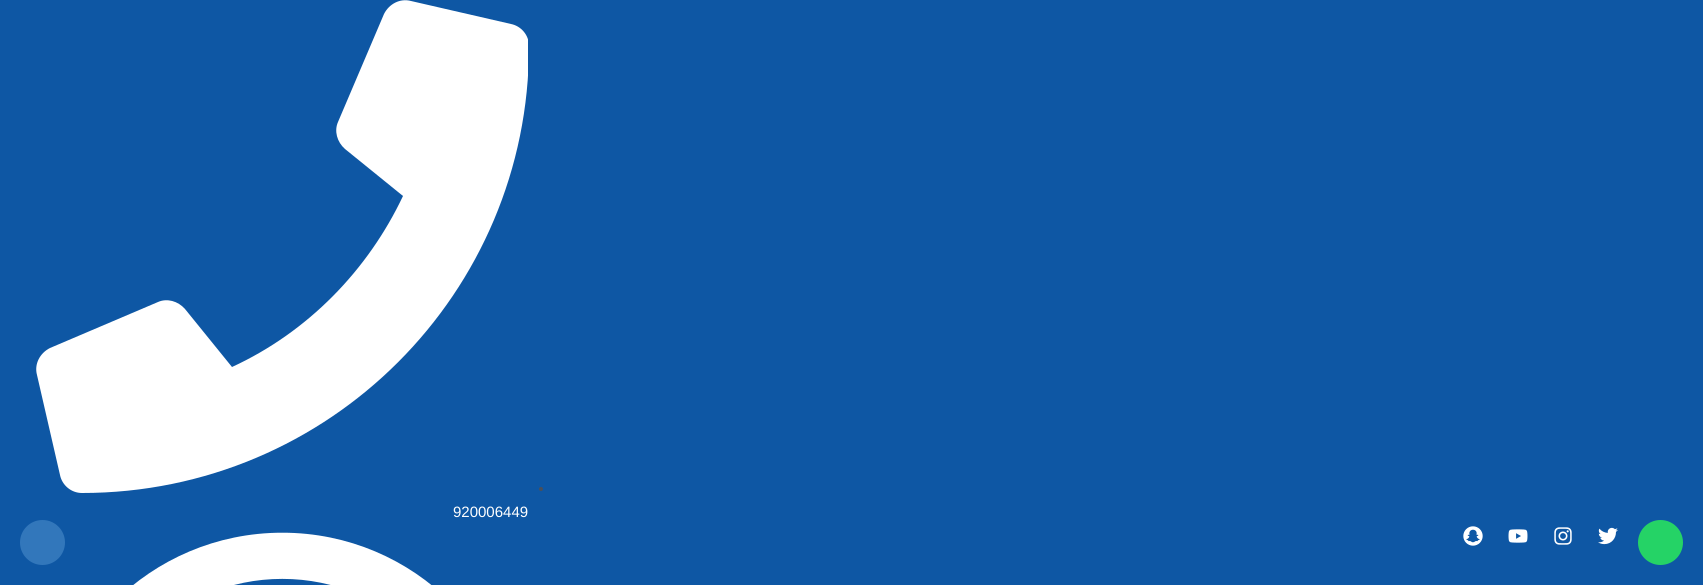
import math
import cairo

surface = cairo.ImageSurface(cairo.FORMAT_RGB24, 1703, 585)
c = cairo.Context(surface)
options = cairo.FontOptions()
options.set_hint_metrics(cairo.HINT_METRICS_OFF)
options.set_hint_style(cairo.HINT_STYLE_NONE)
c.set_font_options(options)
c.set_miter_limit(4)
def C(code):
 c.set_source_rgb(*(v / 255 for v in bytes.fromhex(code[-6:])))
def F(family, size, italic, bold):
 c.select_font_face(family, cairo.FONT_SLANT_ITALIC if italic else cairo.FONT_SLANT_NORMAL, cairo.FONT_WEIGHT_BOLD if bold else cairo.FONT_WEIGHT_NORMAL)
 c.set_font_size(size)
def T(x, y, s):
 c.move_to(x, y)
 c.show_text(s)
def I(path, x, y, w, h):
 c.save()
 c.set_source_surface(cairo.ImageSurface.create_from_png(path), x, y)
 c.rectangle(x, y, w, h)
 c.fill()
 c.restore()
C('0e57a4')
c.paint()
c.save()
c.rectangle(36,0,492,493)
c.clip()
C('ffffff')
c.new_path()
c.move_to(511,24)
c.line_to(411,1)
c.curve_to(400,-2,389,4,384,14)
c.line_to(338,122)
c.curve_to(334,131,337,142,345,149)
c.line_to(403,196)
c.curve_to(368,270,308,332,232,367)
c.line_to(185,309)
c.curve_to(178,301,167,298,158,302)
c.line_to(50,348)
c.curve_to(40,353,34,364,37,375)
c.line_to(60,475)
c.curve_to(62,485,71,493,82,493)
c.curve_to(329,493,529,293,529,46)
c.curve_to(529,35,521,26,511,24)
c.close_path()
c.fill()
c.restore()
C('4b4f58')
c.arc(541,489,2,0,2 * math.pi)
c.fill()
F('Liberation Sans',15,0,0)
C('ffffff')
T(453,517,'920006449')
I('1.png',133,532,299,53)
I('2.png',1463,526,20,20)
I('3.png',1508,529,20,14)
I('4.png',1554,527,18,18)
I('5.png',1598,527,20,18)
C('3277bb')
c.arc(42.5,542.5,22.5,0,2 * math.pi)
c.fill()
C('25d366')
c.arc(1660.5,542.5,22.5,0,2 * math.pi)
c.fill()
surface.write_to_png('o.png')
